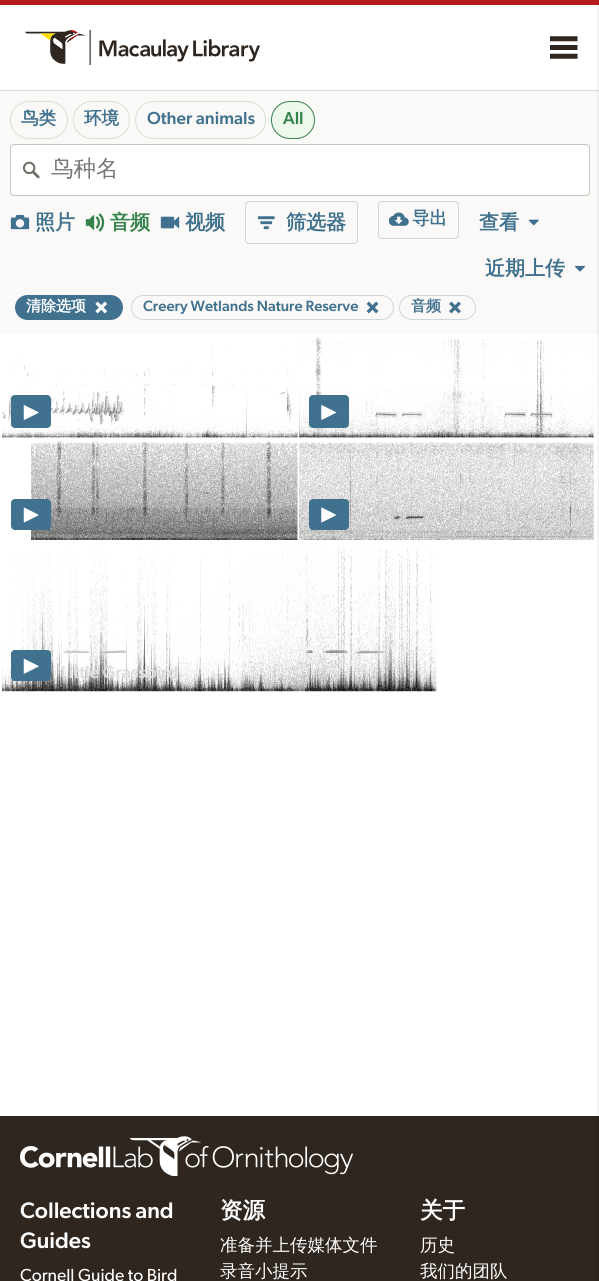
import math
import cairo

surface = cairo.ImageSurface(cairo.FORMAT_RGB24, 599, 1281)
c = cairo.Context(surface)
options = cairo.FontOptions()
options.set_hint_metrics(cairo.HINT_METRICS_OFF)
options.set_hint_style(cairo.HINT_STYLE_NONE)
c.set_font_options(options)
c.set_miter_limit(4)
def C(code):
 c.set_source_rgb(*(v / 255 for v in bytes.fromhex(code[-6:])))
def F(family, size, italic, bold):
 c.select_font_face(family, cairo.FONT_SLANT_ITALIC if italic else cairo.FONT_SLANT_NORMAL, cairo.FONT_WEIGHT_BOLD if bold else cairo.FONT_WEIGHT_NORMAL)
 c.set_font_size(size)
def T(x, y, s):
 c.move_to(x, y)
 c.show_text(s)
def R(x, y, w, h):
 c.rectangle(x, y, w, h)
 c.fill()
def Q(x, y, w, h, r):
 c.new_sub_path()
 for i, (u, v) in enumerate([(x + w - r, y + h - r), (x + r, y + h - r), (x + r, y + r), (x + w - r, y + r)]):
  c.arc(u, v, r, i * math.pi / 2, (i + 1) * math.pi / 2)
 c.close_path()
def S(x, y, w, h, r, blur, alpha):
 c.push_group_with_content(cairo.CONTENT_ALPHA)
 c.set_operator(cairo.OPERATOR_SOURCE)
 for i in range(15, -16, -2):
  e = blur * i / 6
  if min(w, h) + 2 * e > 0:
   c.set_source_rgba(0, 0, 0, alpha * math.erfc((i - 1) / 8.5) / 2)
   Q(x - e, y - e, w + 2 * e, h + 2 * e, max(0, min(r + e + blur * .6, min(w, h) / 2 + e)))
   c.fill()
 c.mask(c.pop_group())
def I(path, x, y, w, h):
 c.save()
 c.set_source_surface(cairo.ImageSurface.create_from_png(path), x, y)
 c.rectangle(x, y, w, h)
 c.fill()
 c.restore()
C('ffffff')
c.paint()
C('b31b1b')
R(0,0,599,5)
C('dbdbd9')
R(0,90,599,1)
I('1.png',25,30,235,35)
I('2.png',550,36,28,23)
C('faf9f7')
R(0,91,599,243)
I('16.png',299,336,295,102)
I('20.png',299,441,295,99)
C('2e261f')
R(0,1116,599,165)
C('000000')
S(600,3,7,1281,0,2.5,.2)
Q(10.5,101.5,57,37,18.5)
C('dddcd5')
c.set_line_width(1)
c.stroke()
F('WenQuanYi Zen Hei',17.5,0,1)
C('40718f')
T(21,124,'鸟类')
Q(73.5,101.5,56,37,18.5)
C('dddcd5')
c.stroke()
C('40718f')
T(84,124,'环境')
Q(135.5,101.5,130,37,18.5)
C('dddcd5')
c.stroke()
F('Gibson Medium',17.5,0,0)
C('40718f')
T(147,124,'Other animals')
C('ecf9eb')
Q(271.5,101.5,43,37,18.5)
c.fill_preserve()
C('36824b')
c.stroke()
T(283,124,'All')
C('ffffff')
Q(10.5,144.5,579,51,3.5)
c.fill_preserve()
C('c8c7c0')
c.stroke()
I('3.png',22,161,18,18)
F('WenQuanYi Zen Hei Medium',22.5,0,0)
C('757575')
T(51,176,'鸟种名')
I('4.png',10,215,20,15)
F('WenQuanYi Zen Hei',20,0,1)
C('40718f')
T(35,229,'照片')
I('5.png',85,213,20,19)
C('36824b')
T(110,229,'音频')
I('6.png',160,216,20,13)
C('40718f')
T(185,229,'视频')
Q(245.5,201.5,112,42,3.5)
C('ccd7dd')
c.stroke()
I('7.png',257,216,18,14)
C('40718f')
T(286,229,'筛选器')
Q(378.5,201.5,80,37,3.5)
C('ccd7dd')
c.stroke()
I('8.png',389,212,20,14)
F('WenQuanYi Zen Hei',17.5,0,1)
C('40718f')
T(412,224,'导出')
F('WenQuanYi Zen Hei',20,0,1)
T(479,229,'查看')
I('9.png',528,219,11,7)
T(485,275,'近期上传')
I('10.png',575,265,10,7)
Q(15,295,108,25,12.5)
c.fill()
F('WenQuanYi Zen Hei',15,0,1)
C('ffffff')
T(26,311,'清除选项')
I('11.png',95,301,12,13)
Q(131.5,295.5,262,24,12)
C('ccd7dd')
c.stroke()
F('Gibson Medium',15,0,0)
C('40718f')
T(143,311,'Creery Wetlands Nature Reserve')
I('12.png',366,301,13,13)
Q(399.5,295.5,76,24,12)
C('ccd7dd')
c.stroke()
F('WenQuanYi Zen Hei',15,0,1)
C('40718f')
T(411,311,'音频')
I('13.png',449,301,12,13)
I('14.png',2,345,296,93)
Q(11,395,40,33,4)
c.fill()
I('15.png',23,405,16,15)
F('Gibson',17.5,0,0)
C('ffffff')
T(286,423,'l')
C('40718f')
Q(309,395,40,33,4)
c.fill()
I('17.png',321,405,16,15)
I('18.png',31,440,267,100)
Q(11,499,40,31,4)
c.fill()
I('19.png',23,507,16,16)
Q(309,499,40,31,4)
c.fill()
I('21.png',321,507,16,16)
I('22.png',2,548,435,144)
Q(11,650,40,31,4)
c.fill()
I('23.png',23,658,16,16)
F('Gibson Medium',17.5,0,0)
C('dddddd')
T(61,678,'Little Grassbird')
I('24.png',20,1136,333,40)
F('Gibson Medium',22.5,0,0)
C('ffffff')
T(20,1218,'Collections and')
T(20,1248,'Guides')
F('Gibson',17.5,0,0)
T(20,1281,'Cornell Guide to Bird')
F('WenQuanYi Zen Hei',22.5,0,1)
T(220,1218,'资源')
F('WenQuanYi Zen Hei Medium',17.5,0,0)
T(220,1251,'准备并上传媒体文件')
T(220,1277,'录音小提示')
F('WenQuanYi Zen Hei',22.5,0,1)
T(420,1218,'关于')
F('WenQuanYi Zen Hei Medium',17.5,0,0)
T(420,1251,'历史')
T(420,1277,'我们的团队')
surface.write_to_png('o.png')
